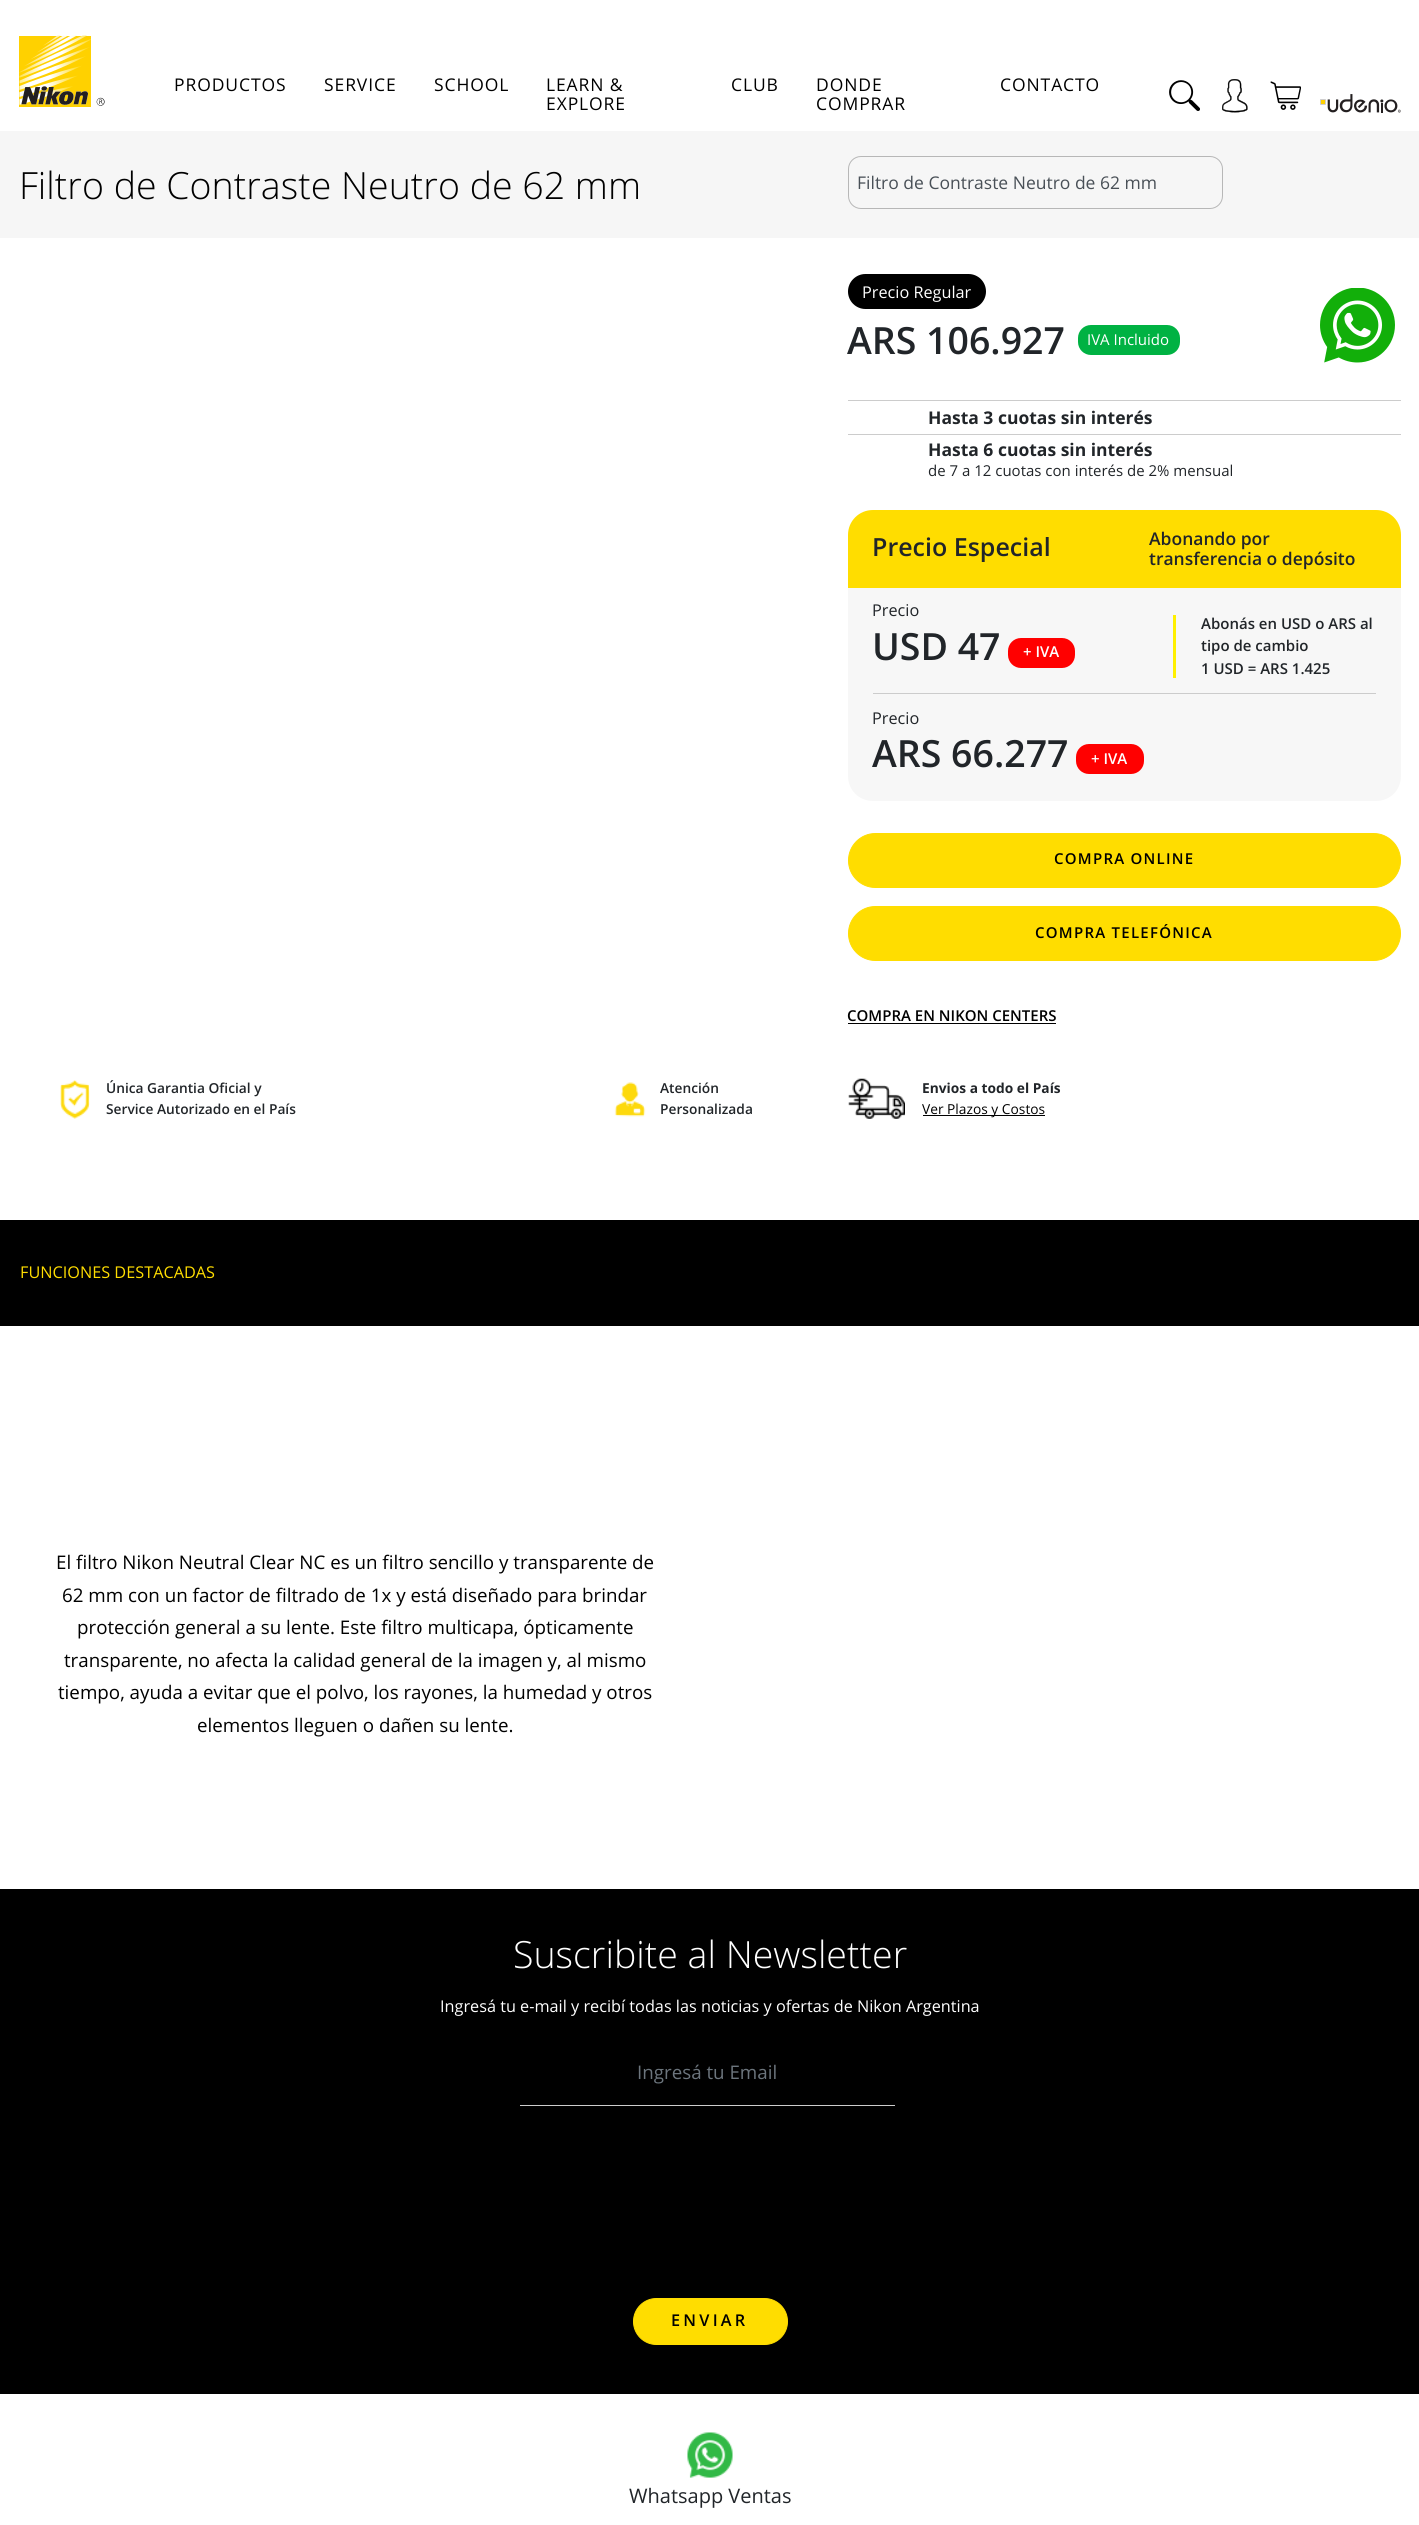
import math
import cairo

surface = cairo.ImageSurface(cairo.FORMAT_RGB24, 1419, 2525)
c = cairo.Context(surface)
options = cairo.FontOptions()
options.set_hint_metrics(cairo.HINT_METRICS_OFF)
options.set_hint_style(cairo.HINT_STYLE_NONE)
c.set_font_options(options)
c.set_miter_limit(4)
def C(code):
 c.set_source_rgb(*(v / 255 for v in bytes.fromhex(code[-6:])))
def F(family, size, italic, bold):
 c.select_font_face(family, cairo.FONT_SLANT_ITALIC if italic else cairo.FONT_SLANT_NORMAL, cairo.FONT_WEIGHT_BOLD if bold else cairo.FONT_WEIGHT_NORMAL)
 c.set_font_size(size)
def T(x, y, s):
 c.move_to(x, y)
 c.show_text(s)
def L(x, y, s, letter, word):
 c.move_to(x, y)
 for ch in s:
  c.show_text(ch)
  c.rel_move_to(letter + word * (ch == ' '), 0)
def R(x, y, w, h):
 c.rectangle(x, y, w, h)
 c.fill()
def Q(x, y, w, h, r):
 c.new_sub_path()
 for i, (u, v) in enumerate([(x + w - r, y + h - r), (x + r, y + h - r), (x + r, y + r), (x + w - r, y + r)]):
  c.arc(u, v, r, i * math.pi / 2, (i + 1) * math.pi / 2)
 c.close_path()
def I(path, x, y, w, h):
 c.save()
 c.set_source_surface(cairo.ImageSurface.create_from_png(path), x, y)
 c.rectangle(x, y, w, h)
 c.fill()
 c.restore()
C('ffffff')
c.paint()
I('1.png',19,35,86,72)
F('Open Sans',17.5,0,0)
C('000000')
L(174,91,'PRODUCTOS',.9,0)
L(324,91,'SERVICE',.9,0)
L(434,91,'SCHOOL',.9,0)
L(546,91,'LEARN &',.9,0)
L(546,110,'EXPLORE',.9,0)
L(731,91,'CLUB',.9,0)
L(816,91,'DONDE',.9,0)
L(816,110,'COMPRAR',.9,0)
L(1000,91,'CONTACTO',.9,0)
I('2.png',1169,80,31,31)
I('3.png',1222,79,26,34)
I('4.png',1270,81,31,29)
I('5.png',1320,94,81,19)
C('f6f6f6')
R(0,131,1419,107)
F('Open Sans Light',37.5,0,0)
C('000000')
T(19,199,'Filtro de Contraste Neutro de 62 mm')
Q(848.5,156.5,374,52,12.5)
C('b7b7b7')
c.set_line_width(1)
c.stroke()
F('Open Sans',17.5,0,0)
C('495057')
T(857,189,'Filtro de Contraste Neutro de 62 mm')
C('000000')
Q(848,274,138,35,17.5)
c.fill()
F('Open Sans',16.25,0,0)
C('ffffff')
T(862,298,'Precio Regular')
F('Open Sans SemiBold',37.5,0,0)
C('212529')
T(847,354,'ARS 106.927')
C('00b243')
Q(1078,325,102,30,13)
c.fill()
F('Open Sans',15,0,0)
C('ffffff')
T(1087,345,'IVA Incluido')
C('cccccc')
R(848,400,553,1)
F('Open Sans',17.5,0,1)
C('212529')
T(928,424,'Hasta 3 cuotas sin interés')
C('cccccc')
R(848,434,553,1)
C('212529')
T(928,456,'Hasta 6 cuotas sin interés')
F('Open Sans',15,0,0)
T(928,476,'de 7 a 12 cuotas con interés de 2% mensual')
C('ffdd00')
c.new_path()
c.move_to(873,510)
c.line_to(1376,510)
c.curve_to(1390,510,1401,521,1401,535)
c.line_to(1401,588)
c.line_to(848,588)
c.line_to(848,535)
c.curve_to(848,521,859,510,873,510)
c.close_path()
c.fill()
F('Open Sans SemiBold',25,0,0)
C('212529')
T(872,556,'Precio Especial')
F('Open Sans SemiBold',17.5,0,0)
T(1149,545,'Abonando por')
T(1149,565,'transferencia o depósito')
C('f7f7f7')
c.new_path()
c.move_to(848,588)
c.line_to(1401,588)
c.line_to(1401,776)
c.curve_to(1401,790,1390,801,1376,801)
c.line_to(873,801)
c.curve_to(859,801,848,790,848,776)
c.close_path()
c.fill()
F('Open Sans',16.25,0,0)
C('212529')
T(872,616,'Precio')
F('Open Sans SemiBold',37.5,0,0)
T(872,660,'USD 47')
C('ff0000')
Q(1008,638,67,30,13)
c.fill()
F('Open Sans SemiBold',15,0,0)
C('ffffff')
T(1023,657,'+ IVA')
C('fff000')
R(1173,615,3,63)
C('212529')
T(1201,629,'Abonás en USD o ARS al')
T(1201,651,'tipo de cambio')
T(1201,674,'1 USD = ARS 1.425')
C('cccccc')
R(873,693,503,1)
F('Open Sans',16.25,0,0)
C('212529')
T(872,724,'Precio')
F('Open Sans SemiBold',37.5,0,0)
T(872,767,'ARS 66.277')
C('ff0000')
Q(1076,744,68,30,13)
c.fill()
F('Open Sans SemiBold',15,0,0)
C('ffffff')
T(1091,764,'+ IVA')
C('ffdd00')
Q(848.5,833.5,552,54,27)
c.fill_preserve()
c.stroke()
C('000000')
L(1054,864,'COMPRA ONLINE',1.25,0)
C('ffdd00')
Q(848.5,906.5,552,54,27)
c.fill_preserve()
c.stroke()
C('000000')
L(1035,938,'COMPRA TELEFÓNICA',1.25,0)
T(847,1021,'COMPRA EN NIKON CENTERS')
R(848,1023,208,1)
I('6.png',60,1080,30,39)
F('Open Sans SemiBold',13.75,0,0)
C('212529')
T(106,1093,'Única Garantia Oficial y')
T(106,1114,'Service Autorizado en el País')
I('7.png',614,1082,32,35)
T(660,1093,'Atención')
T(660,1114,'Personalizada')
I('8.png',848,1078,57,41)
F('Open Sans',13.75,0,1)
T(922,1093,'Envios a todo el País')
C('000000')
R(923,1115,122,1)
F('Open Sans',13.75,0,0)
T(922,1114,'Ver Plazos y Costos')
R(0,1220,1419,106)
F('Open Sans',16.25,0,0)
C('ffdd00')
T(20,1278,'FUNCIONES DESTACADAS')
F('Open Sans',18.75,0,0)
C('000000')
T(56,1569,'El filtro Nikon Neutral Clear NC es un filtro sencillo y transparente de')
T(62,1602,'62 mm con un factor de filtrado de 1x y está diseñado para brindar')
T(77,1634,'protección general a su lente. Este filtro multicapa, ópticamente')
T(64,1667,'transparente, no afecta la calidad general de la imagen y, al mismo')
T(58,1699,'tiempo, ayuda a evitar que el polvo, los rayones, la humedad y otros')
T(197,1732,'elementos lleguen o dañen su lente.')
I('9.png',1320,288,75,75)
R(0,1889,1419,505)
F('Open Sans Light',37.5,0,0)
C('ffffff')
T(513,1968,'Suscribite al Newsletter')
F('Open Sans',16.25,0,0)
T(440,2012,'Ingresá tu e-mail y recibí todas las noticias y ofertas de Nikon Argentina')
C('cccccc')
R(520,2105,375,1)
F('Open Sans',18.75,0,0)
C('6c757d')
T(637,2079,'Ingresá tu Email')
C('ffdd00')
Q(633.5,2298.5,154,46,23)
c.fill_preserve()
c.stroke()
F('Open Sans SemiBold',16.25,0,0)
C('000000')
L(671,2326,'ENVIAR',3.25,0)
I('10.png',687,2432,46,46)
F('Open Sans',20,0,0)
C('212529')
T(629,2503,'Whatsapp Ventas')
surface.write_to_png('o.png')
